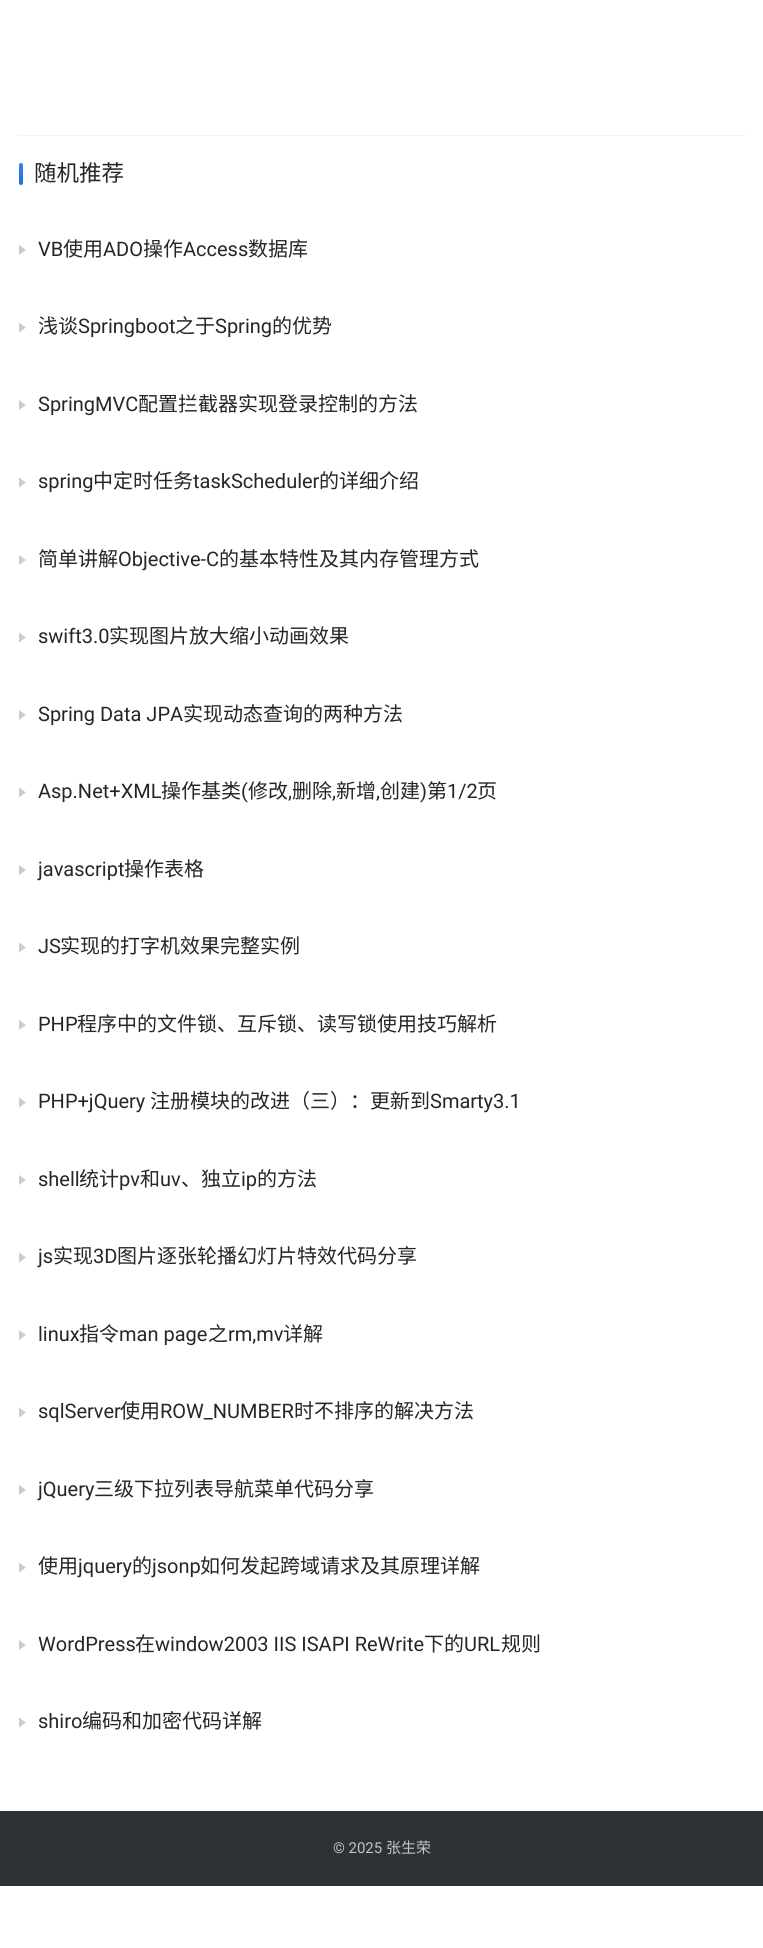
import math
import cairo

surface = cairo.ImageSurface(cairo.FORMAT_RGB24, 763, 1948)
c = cairo.Context(surface)
options = cairo.FontOptions()
options.set_hint_metrics(cairo.HINT_METRICS_OFF)
options.set_hint_style(cairo.HINT_STYLE_NONE)
c.set_font_options(options)
c.set_miter_limit(4)
def C(code):
 c.set_source_rgb(*(v / 255 for v in bytes.fromhex(code[-6:])))
def F(family, size, italic, bold):
 c.select_font_face(family, cairo.FONT_SLANT_ITALIC if italic else cairo.FONT_SLANT_NORMAL, cairo.FONT_WEIGHT_BOLD if bold else cairo.FONT_WEIGHT_NORMAL)
 c.set_font_size(size)
def T(x, y, s):
 c.move_to(x, y)
 c.show_text(s)
def R(x, y, w, h):
 c.rectangle(x, y, w, h)
 c.fill()
def Q(x, y, w, h, r):
 c.new_sub_path()
 for i, (u, v) in enumerate([(x + w - r, y + h - r), (x + r, y + h - r), (x + r, y + r), (x + w - r, y + r)]):
  c.arc(u, v, r, i * math.pi / 2, (i + 1) * math.pi / 2)
 c.close_path()
C('ffffff')
c.paint()
C('f4f4f4')
R(19,135,726,1)
C('206be7')
Q(19,163,4,22,2)
c.fill()
gradient = cairo.LinearGradient(21,163,21,185)
gradient.add_color_stop_rgba(0,1,1,1,.15)
gradient.add_color_stop_rgba(1,1,1,1,0)
c.set_source(gradient)
Q(19,163,4,22,2)
c.fill()
F('Noto Sans CJK SC',22.5,0,0)
C('262626')
T(34,181,'随机推荐')
C('cccccc')
c.new_path()
c.move_to(19,255)
c.line_to(19,245)
c.line_to(26,250)
c.close_path()
c.fill()
F('Roboto',20,0,0)
C('262626')
T(38,256,'VB')
F('Noto Sans CJK SC',20,0,0)
T(63,256,'使用')
F('Roboto',20,0,0)
T(103,256,'ADO')
F('Noto Sans CJK SC',20,0,0)
T(143,256,'操作')
F('Roboto',20,0,0)
T(183,256,'Access')
F('Noto Sans CJK SC',20,0,0)
T(248,256,'数据库')
C('cccccc')
c.new_path()
c.move_to(19,332.5)
c.line_to(19,322.5)
c.line_to(26,327.5)
c.close_path()
c.fill()
C('262626')
T(38,333,'浅谈')
F('Roboto',20,0,0)
T(78,333,'Springboot')
F('Noto Sans CJK SC',20,0,0)
T(175,333,'之于')
F('Roboto',20,0,0)
T(215,333,'Spring')
F('Noto Sans CJK SC',20,0,0)
T(272,333,'的优势')
C('cccccc')
c.new_path()
c.move_to(19,410)
c.line_to(19,400)
c.line_to(26,405)
c.close_path()
c.fill()
F('Roboto',20,0,0)
C('262626')
T(38,411,'SpringMVC')
F('Noto Sans CJK SC',20,0,0)
T(138,411,'配置拦截器实现登录控制的方法')
C('cccccc')
c.new_path()
c.move_to(19,487.5)
c.line_to(19,477.5)
c.line_to(26,482.5)
c.close_path()
c.fill()
F('Roboto',20,0,0)
C('262626')
T(38,488,'spring')
F('Noto Sans CJK SC',20,0,0)
T(93,488,'中定时任务')
F('Roboto',20,0,0)
T(193,488,'taskScheduler')
F('Noto Sans CJK SC',20,0,0)
T(319,488,'的详细介绍')
C('cccccc')
c.new_path()
c.move_to(19,565)
c.line_to(19,555)
c.line_to(26,560)
c.close_path()
c.fill()
C('262626')
T(38,566,'简单讲解')
F('Roboto',20,0,0)
T(118,566,'Objective-C')
F('Noto Sans CJK SC',20,0,0)
T(219,566,'的基本特性及其内存管理方式')
C('cccccc')
c.new_path()
c.move_to(19,642.5)
c.line_to(19,632.5)
c.line_to(26,637.5)
c.close_path()
c.fill()
F('Roboto',20,0,0)
C('262626')
T(38,643,'swift3.0')
F('Noto Sans CJK SC',20,0,0)
T(109,643,'实现图片放大缩小动画效果')
C('cccccc')
c.new_path()
c.move_to(19,720)
c.line_to(19,710)
c.line_to(26,715)
c.close_path()
c.fill()
F('Roboto',20,0,0)
C('262626')
T(38,721,'Spring Data JPA')
F('Noto Sans CJK SC',20,0,0)
T(183,721,'实现动态查询的两种方法')
C('cccccc')
c.new_path()
c.move_to(19,797.5)
c.line_to(19,787.5)
c.line_to(26,792.5)
c.close_path()
c.fill()
F('Roboto',20,0,0)
C('262626')
T(38,798,'Asp.Net+XML')
F('Noto Sans CJK SC',20,0,0)
T(161,798,'操作基类')
F('Roboto',20,0,0)
T(241,798,'(')
F('Noto Sans CJK SC',20,0,0)
T(248,798,'修改')
F('Roboto',20,0,0)
T(288,798,',')
F('Noto Sans CJK SC',20,0,0)
T(292,798,'删除')
F('Roboto',20,0,0)
T(332,798,',')
F('Noto Sans CJK SC',20,0,0)
T(336,798,'新增')
F('Roboto',20,0,0)
T(376,798,',')
F('Noto Sans CJK SC',20,0,0)
T(380,798,'创建')
F('Roboto',20,0,0)
T(420,798,')')
F('Noto Sans CJK SC',20,0,0)
T(427,798,'第')
F('Roboto',20,0,0)
T(447,798,'1/2')
F('Noto Sans CJK SC',20,0,0)
T(477,798,'页')
C('cccccc')
c.new_path()
c.move_to(19,875)
c.line_to(19,865)
c.line_to(26,870)
c.close_path()
c.fill()
F('Roboto',20,0,0)
C('262626')
T(38,876,'javascript')
F('Noto Sans CJK SC',20,0,0)
T(124,876,'操作表格')
C('cccccc')
c.new_path()
c.move_to(19,952.5)
c.line_to(19,942.5)
c.line_to(26,947.5)
c.close_path()
c.fill()
F('Roboto',20,0,0)
C('262626')
T(38,953,'JS')
F('Noto Sans CJK SC',20,0,0)
T(60,953,'实现的打字机效果完整实例')
C('cccccc')
c.new_path()
c.move_to(19,1030)
c.line_to(19,1020)
c.line_to(26,1025)
c.close_path()
c.fill()
F('Roboto',20,0,0)
C('262626')
T(38,1031,'PHP')
F('Noto Sans CJK SC',20,0,0)
T(77,1031,'程序中的文件锁、互斥锁、读写锁使用技巧解析')
C('cccccc')
c.new_path()
c.move_to(19,1107.5)
c.line_to(19,1097.5)
c.line_to(26,1102.5)
c.close_path()
c.fill()
F('Roboto',20,0,0)
C('262626')
T(38,1108,'PHP+jQuery')
F('Noto Sans CJK SC',20,0,0)
T(150,1108,'注册模块的改进（三）：更新到')
F('Roboto',20,0,0)
T(430,1108,'Smarty3.1')
C('cccccc')
c.new_path()
c.move_to(19,1185)
c.line_to(19,1175)
c.line_to(26,1180)
c.close_path()
c.fill()
C('262626')
T(38,1186,'shell')
F('Noto Sans CJK SC',20,0,0)
T(79,1186,'统计')
F('Roboto',20,0,0)
T(119,1186,'pv')
F('Noto Sans CJK SC',20,0,0)
T(140,1186,'和')
F('Roboto',20,0,0)
T(160,1186,'uv')
F('Noto Sans CJK SC',20,0,0)
T(181,1186,'、独立')
F('Roboto',20,0,0)
T(241,1186,'ip')
F('Noto Sans CJK SC',20,0,0)
T(257,1186,'的方法')
C('cccccc')
c.new_path()
c.move_to(19,1262.5)
c.line_to(19,1252.5)
c.line_to(26,1257.5)
c.close_path()
c.fill()
F('Roboto',20,0,0)
C('262626')
T(38,1263,'js')
F('Noto Sans CJK SC',20,0,0)
T(53,1263,'实现')
F('Roboto',20,0,0)
T(93,1263,'3D')
F('Noto Sans CJK SC',20,0,0)
T(117,1263,'图片逐张轮播幻灯片特效代码分享')
C('cccccc')
c.new_path()
c.move_to(19,1340)
c.line_to(19,1330)
c.line_to(26,1335)
c.close_path()
c.fill()
F('Roboto',20,0,0)
C('262626')
T(38,1341,'linux')
F('Noto Sans CJK SC',20,0,0)
T(79,1341,'指令')
F('Roboto',20,0,0)
T(119,1341,'man page')
F('Noto Sans CJK SC',20,0,0)
T(208,1341,'之')
F('Roboto',20,0,0)
T(228,1341,'rm,mv')
F('Noto Sans CJK SC',20,0,0)
T(283,1341,'详解')
C('cccccc')
c.new_path()
c.move_to(19,1417.5)
c.line_to(19,1407.5)
c.line_to(26,1412.5)
c.close_path()
c.fill()
F('Roboto',20,0,0)
C('262626')
T(38,1418,'sqlServer')
F('Noto Sans CJK SC',20,0,0)
T(120,1418,'使用')
F('Roboto',20,0,0)
T(160,1418,'ROW_NUMBER')
F('Noto Sans CJK SC',20,0,0)
T(294,1418,'时不排序的解决方法')
C('cccccc')
c.new_path()
c.move_to(19,1495)
c.line_to(19,1485)
c.line_to(26,1490)
c.close_path()
c.fill()
F('Roboto',20,0,0)
C('262626')
T(38,1496,'jQuery')
F('Noto Sans CJK SC',20,0,0)
T(94,1496,'三级下拉列表导航菜单代码分享')
C('cccccc')
c.new_path()
c.move_to(19,1572.5)
c.line_to(19,1562.5)
c.line_to(26,1567.5)
c.close_path()
c.fill()
C('262626')
T(38,1573,'使用')
F('Roboto',20,0,0)
T(78,1573,'jquery')
F('Noto Sans CJK SC',20,0,0)
T(132,1573,'的')
F('Roboto',20,0,0)
T(152,1573,'jsonp')
F('Noto Sans CJK SC',20,0,0)
T(200,1573,'如何发起跨域请求及其原理详解')
C('cccccc')
c.new_path()
c.move_to(19,1650)
c.line_to(19,1640)
c.line_to(26,1645)
c.close_path()
c.fill()
F('Roboto',20,0,0)
C('262626')
T(38,1651,'WordPress')
F('Noto Sans CJK SC',20,0,0)
T(135,1651,'在')
F('Roboto',20,0,0)
T(155,1651,'window2003 IIS ISAPI ReWrite')
F('Noto Sans CJK SC',20,0,0)
T(424,1651,'下的')
F('Roboto',20,0,0)
T(464,1651,'URL')
F('Noto Sans CJK SC',20,0,0)
T(501,1651,'规则')
C('cccccc')
c.new_path()
c.move_to(19,1727.5)
c.line_to(19,1717.5)
c.line_to(26,1722.5)
c.close_path()
c.fill()
F('Roboto',20,0,0)
C('262626')
T(38,1728,'shiro')
F('Noto Sans CJK SC',20,0,0)
T(82,1728,'编码和加密代码详解')
C('2d3236')
R(0,1811,763,75)
F('Roboto',15,0,0)
C('c0c2c3')
T(333,1853,'© 2025')
F('Noto Sans CJK SC',15,0,0)
T(386,1853,'张生荣')
surface.write_to_png('o.png')
